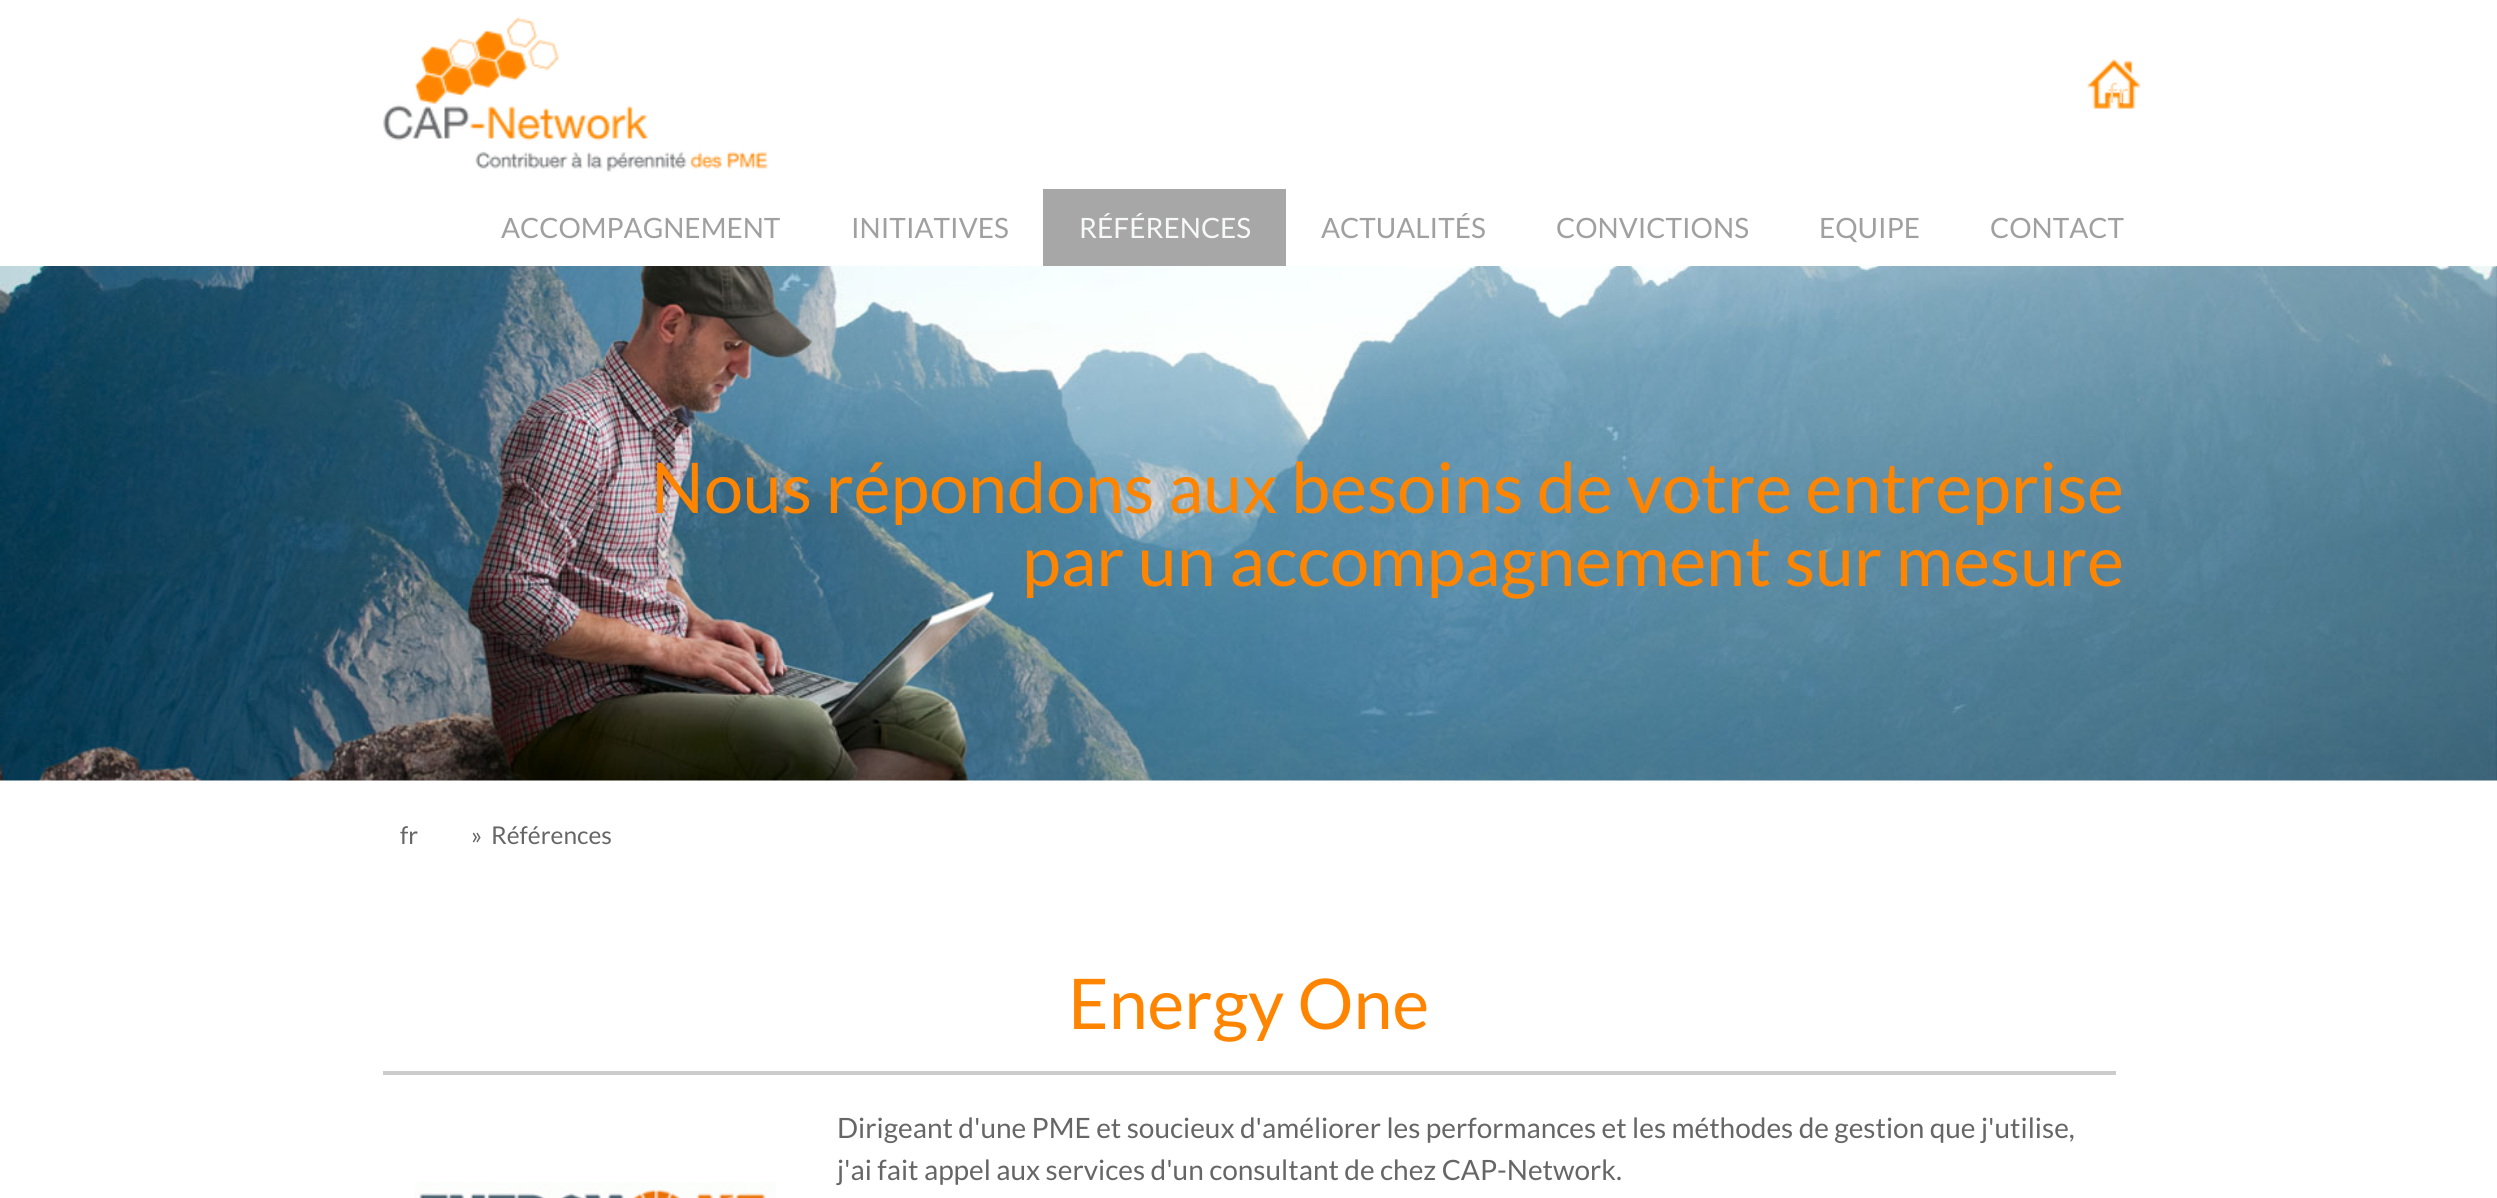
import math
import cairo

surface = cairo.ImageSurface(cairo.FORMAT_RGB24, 2497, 1198)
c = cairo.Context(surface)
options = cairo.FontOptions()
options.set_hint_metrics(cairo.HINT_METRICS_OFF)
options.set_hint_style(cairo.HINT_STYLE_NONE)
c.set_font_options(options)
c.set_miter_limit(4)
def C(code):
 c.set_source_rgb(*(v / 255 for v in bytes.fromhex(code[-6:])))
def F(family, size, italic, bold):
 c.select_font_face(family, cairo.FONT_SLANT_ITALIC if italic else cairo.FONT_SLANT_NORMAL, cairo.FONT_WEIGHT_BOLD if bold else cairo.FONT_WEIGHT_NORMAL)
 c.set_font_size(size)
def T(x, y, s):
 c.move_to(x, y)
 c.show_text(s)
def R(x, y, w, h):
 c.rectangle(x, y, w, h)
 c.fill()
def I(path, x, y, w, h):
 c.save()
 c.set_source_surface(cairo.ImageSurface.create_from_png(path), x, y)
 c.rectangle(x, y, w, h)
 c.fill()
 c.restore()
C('ffffff')
c.paint()
I('1.png',383,17,386,155)
I('2.png',2087,59,54,50)
F('Lato',28,0,0)
C('ffdbb2')
T(2108,103,'fr')
C('a0a0a0')
T(501,238,'ACCOMPAGNEMENT')
T(851,238,'INITIATIVES')
C('a7a7a7')
R(1043,189,243,77)
C('f7f8f8')
T(1079,238,'RÉFÉRENCES')
C('a0a0a0')
T(1321,238,'ACTUALITÉS')
T(1556,238,'CONVICTIONS')
T(1819,238,'EQUIPE')
T(1990,238,'CONTACT')
I('3.png',0,266,2497,515)
F('Lato',70,0,0)
C('ff8500')
T(651,513,'Nous répondons aux besoins de votre entreprise')
T(1022,586,'par un accompagnement sur mesure')
F('Lato',24.5,0,0)
C('666666')
T(400,844,'fr')
T(471,844,'»')
T(491,844,'Références')
F('Lato',70,0,0)
C('ff8500')
T(1068,1029,'Energy One')
C('cccccc')
R(383,1071,1733,4)
F('Lato',28,0,0)
C('666666')
T(837,1138,'Dirigeant d\'une PME et soucieux d\'améliorer les performances et les méthodes de gestion que j\'utilise,')
T(837,1180,'j\'ai fait appel aux services d\'un consultant de chez CAP-Network.')
I('4.png',415,1182,361,16)
surface.write_to_png('o.png')
